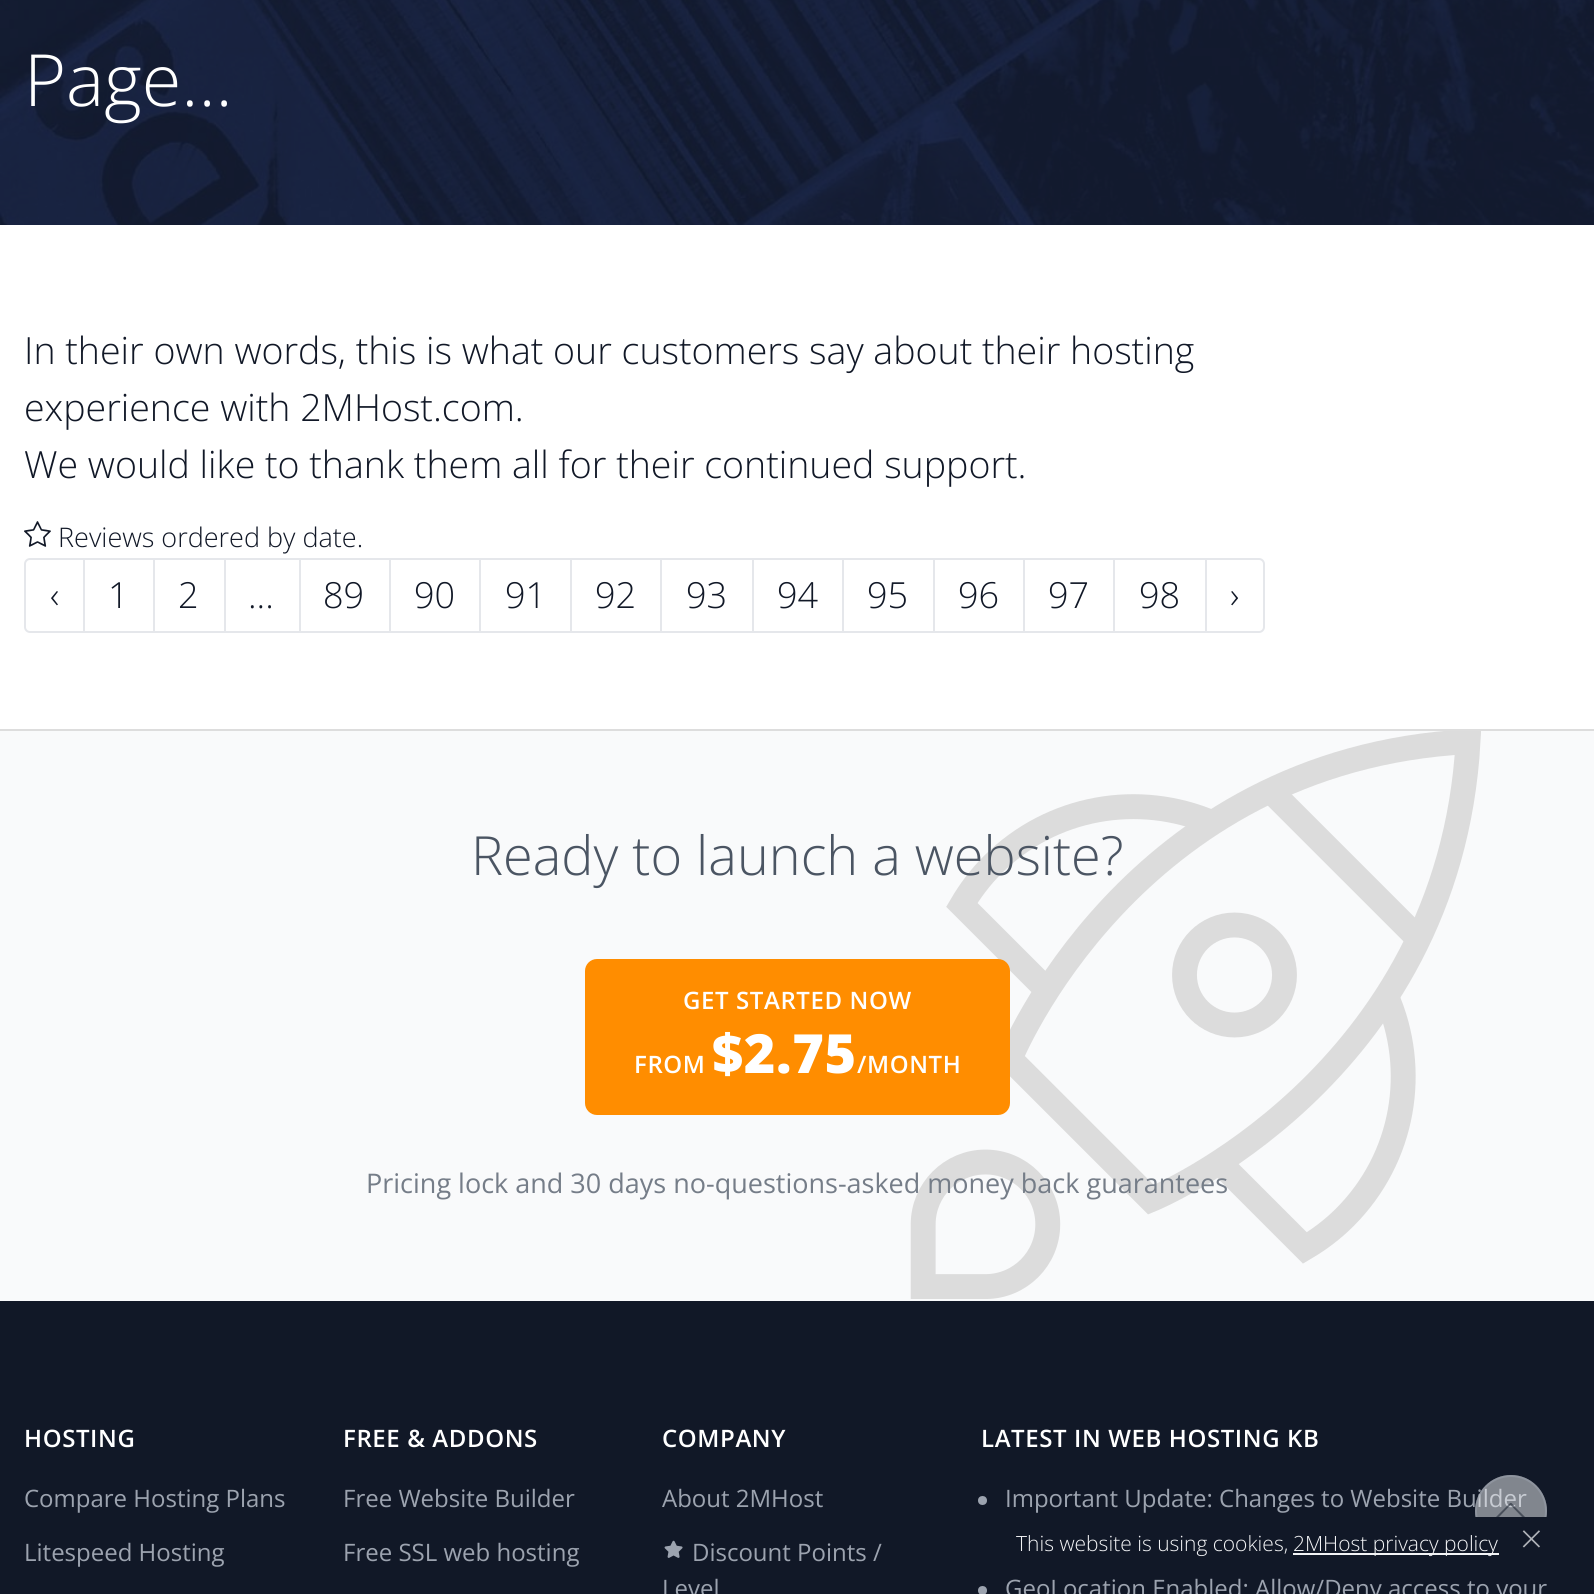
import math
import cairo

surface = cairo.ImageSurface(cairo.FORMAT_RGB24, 1594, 1594)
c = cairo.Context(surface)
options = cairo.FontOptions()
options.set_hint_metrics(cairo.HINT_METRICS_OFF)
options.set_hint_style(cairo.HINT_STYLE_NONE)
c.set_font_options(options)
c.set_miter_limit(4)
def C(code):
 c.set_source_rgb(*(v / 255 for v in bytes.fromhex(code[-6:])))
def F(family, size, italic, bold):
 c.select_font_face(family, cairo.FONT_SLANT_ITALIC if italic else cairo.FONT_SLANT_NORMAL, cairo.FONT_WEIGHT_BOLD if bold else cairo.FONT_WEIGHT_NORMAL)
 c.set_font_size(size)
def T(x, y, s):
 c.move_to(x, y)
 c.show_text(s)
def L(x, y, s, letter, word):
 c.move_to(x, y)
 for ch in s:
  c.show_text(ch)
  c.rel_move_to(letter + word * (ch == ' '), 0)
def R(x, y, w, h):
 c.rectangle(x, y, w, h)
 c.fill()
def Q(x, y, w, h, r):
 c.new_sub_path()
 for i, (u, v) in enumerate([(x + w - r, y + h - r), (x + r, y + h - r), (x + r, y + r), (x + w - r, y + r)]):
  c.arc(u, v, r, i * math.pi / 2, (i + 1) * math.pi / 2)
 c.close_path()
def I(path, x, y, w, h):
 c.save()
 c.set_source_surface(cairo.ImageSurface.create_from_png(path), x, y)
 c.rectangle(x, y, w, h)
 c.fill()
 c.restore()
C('ffffff')
c.paint()
I('1.png',0,0,1594,225)
F('Open Sans Light',72,0,0)
C('ffffff')
T(24,106,'Page...')
F('Open Sans Light',37.5,0,0)
C('111827')
T(24,364,'In their own words, this is what our customers say about their hosting')
T(24,421,'experience with 2MHost.com.')
T(24,478,'We would like to thank them all for their continued support.')
I('2.png',24,521,27,26)
F('Open Sans Light',27,0,0)
T(58,547,'Reviews ordered by date.')
Q(25,559,1239,73,5)
C('e5e7eb')
c.stroke()
F('Open Sans Light',36,0,0)
C('111827')
T(50,608,'‹')
C('e5e7eb')
R(83,560,2,72)
C('111827')
T(108,608,'1')
C('e5e7eb')
R(153,560,2,72)
C('111827')
T(178,608,'2')
C('e5e7eb')
R(299,560,2,72)
C('111827')
T(323,608,'89')
C('e5e7eb')
R(389,560,2,72)
C('111827')
T(414,608,'90')
C('e5e7eb')
R(479,560,2,72)
C('111827')
T(505,608,'91')
C('e5e7eb')
R(570,560,2,72)
C('111827')
T(595,608,'92')
C('e5e7eb')
R(660,560,2,72)
C('111827')
T(686,608,'93')
C('e5e7eb')
R(752,560,2,72)
C('111827')
T(777,608,'94')
C('e5e7eb')
R(842,560,2,72)
C('111827')
T(867,608,'95')
C('e5e7eb')
R(933,560,2,72)
C('111827')
T(958,608,'96')
C('e5e7eb')
R(1023,560,2,72)
C('111827')
T(1048,608,'97')
C('e5e7eb')
R(1113,560,2,72)
C('111827')
T(1139,608,'98')
C('e5e7eb')
R(1205,560,2,72)
C('111827')
T(1230,608,'›')
C('e5e7eb')
R(224,560,2,72)
C('111827')
T(248,608,'...')
C('f9fafb')
R(0,731,1594,570)
I('3.png',910,731,571,568)
C('dddddd')
R(0,729,1594,2)
F('Open Sans Light',54,0,0)
C('4b5563')
T(471,875,'Ready to launch a website?')
C('ff8d00')
Q(585,959,425,156,12)
c.fill()
F('Open Sans SemiBold',24,0,0)
C('ffffff')
L(683,1009,'GET STARTED NOW',.6,0)
L(634,1073,'FROM',.6,0)
F('Open Sans ExtraBold',54,0,0)
L(712,1073,'$2.75',.6,0)
F('Open Sans SemiBold',24,0,0)
L(857,1073,'/MONTH',.6,0)
F('Open Sans',27,0,0)
C('757d88')
T(366,1193,'Pricing lock and 30 days no-questions-asked money back guarantees')
C('111827')
R(0,1301,1594,293)
F('Open Sans SemiBold',24,0,0)
C('ffffff')
L(24,1447,'HOSTING',.6,0)
F('Open Sans',24,0,0)
C('9ca3af')
T(24,1507,'Compare Hosting Plans')
T(24,1561,'Litespeed Hosting')
F('Open Sans SemiBold',24,0,0)
C('ffffff')
L(343,1447,'FREE & ADDONS',.6,0)
F('Open Sans',24,0,0)
C('9ca3af')
T(343,1507,'Free Website Builder')
T(343,1561,'Free SSL web hosting')
F('Open Sans SemiBold',24,0,0)
C('ffffff')
L(662,1447,'COMPANY',.6,0)
F('Open Sans',24,0,0)
C('9ca3af')
T(662,1507,'About 2MHost')
I('4.png',664,1540,19,18)
T(692,1561,'Discount Points /')
T(662,1597,'Level')
F('Open Sans SemiBold',24,0,0)
C('ffffff')
L(981,1447,'LATEST IN WEB HOSTING KB',.6,0)
C('9ca3af')
c.new_path()
c.arc(982.5,1500.5,4.5,0,2 * math.pi)
c.fill()
F('Open Sans',24,0,0)
T(1005,1507,'Important Update: Changes to Website Builder')
c.new_path()
c.arc(982.5,1590.5,4.5,0,2 * math.pi)
c.fill()
T(1005,1597,'GeoLocation Enabled: Allow/Deny access to your')
c.set_source_rgba(0.953,0.957,0.965,0.5)
c.new_path()
c.arc(1511,1511,36,0,2 * math.pi)
c.fill()
c.arc(1511,1511,35,0,2 * math.pi)
c.set_source_rgba(0.612,0.639,0.686,0.5)
c.stroke()
c.set_source_rgba(0.067,0.094,0.153,0.5)
c.new_path()
c.move_to(1523.5,1518.5)
c.line_to(1510.5,1505)
c.line_to(1497.5,1518.5)
c.line_to(1496,1517)
c.line_to(1507.5,1505.5)
c.curve_to(1512,1501,1510.5,1502.5,1516,1508)
c.line_to(1525,1517)
c.close_path()
c.fill()
C('111827')
Q(998,1517,573,54,6)
c.fill()
F('Open Sans Light',21,0,0)
C('f3f4f6')
T(1016,1551,'This website is using cookies,')
R(1293,1553,206,2)
T(1293,1551,'2MHost privacy policy')
F('Open Sans Light',40,0,0)
C('afb2b8')
T(1520,1553,'×')
surface.write_to_png('o.png')
